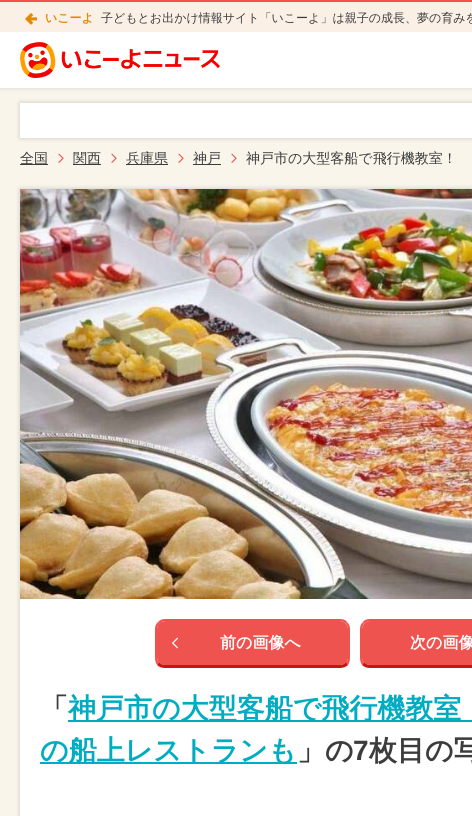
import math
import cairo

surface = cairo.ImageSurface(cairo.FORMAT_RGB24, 472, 816)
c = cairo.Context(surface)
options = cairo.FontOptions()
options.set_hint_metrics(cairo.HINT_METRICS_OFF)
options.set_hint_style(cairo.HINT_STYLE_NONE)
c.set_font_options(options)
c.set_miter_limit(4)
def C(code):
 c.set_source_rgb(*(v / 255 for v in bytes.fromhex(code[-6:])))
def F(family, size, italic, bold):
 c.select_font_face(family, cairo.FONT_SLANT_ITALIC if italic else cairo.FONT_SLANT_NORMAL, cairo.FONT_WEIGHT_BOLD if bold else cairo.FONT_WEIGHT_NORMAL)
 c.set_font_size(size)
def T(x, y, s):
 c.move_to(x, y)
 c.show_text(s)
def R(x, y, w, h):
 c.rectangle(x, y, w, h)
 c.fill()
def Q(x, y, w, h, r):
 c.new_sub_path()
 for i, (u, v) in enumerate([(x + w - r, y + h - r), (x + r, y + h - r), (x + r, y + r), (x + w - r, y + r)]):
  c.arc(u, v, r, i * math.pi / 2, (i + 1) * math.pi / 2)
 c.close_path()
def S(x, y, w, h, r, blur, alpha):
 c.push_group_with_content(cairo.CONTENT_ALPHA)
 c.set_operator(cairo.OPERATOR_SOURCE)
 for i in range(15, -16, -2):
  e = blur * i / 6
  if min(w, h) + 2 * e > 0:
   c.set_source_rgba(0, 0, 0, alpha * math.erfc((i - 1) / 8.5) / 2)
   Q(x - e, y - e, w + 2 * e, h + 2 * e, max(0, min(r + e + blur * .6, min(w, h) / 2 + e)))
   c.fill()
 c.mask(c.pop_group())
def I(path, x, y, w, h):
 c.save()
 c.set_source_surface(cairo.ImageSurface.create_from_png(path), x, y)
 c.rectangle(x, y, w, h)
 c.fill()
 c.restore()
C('ffffff')
c.paint()
C('f9f5eb')
R(0,88,472,728)
c.save()
c.rectangle(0,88,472,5)
c.clip()
C('d5d5d5')
S(0,0,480,88,0,2.5,1)
c.restore()
C('ef5350')
R(0,0,472,2)
C('faf0e6')
R(0,2,472,30)
I('1.png',25,13,12,12)
F('WenQuanYi Zen Hei',12,0,1)
C('e58700')
T(45,22,'いこーよ')
F('WenQuanYi Zen Hei Medium',12,0,0)
C('3c3c3c')
T(101,22,'子どもとお出かけ情報サイト「いこーよ」は親子の成長、夢の育みを')
I('2.png',20,42,200,36)
C('000000')
S(20,103,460,35,0,2.5,.2)
C('ffffff')
R(20,103,452,35)
C('3c3c3c')
R(20,164,28,1)
F('WenQuanYi Zen Hei Medium',14,0,0)
T(20,163,'全国')
I('3.png',58,153,6,10)
R(73,164,28,1)
T(73,163,'関西')
I('3.png',111,153,6,10)
R(126,164,42,1)
T(126,163,'兵庫県')
I('3.png',178,153,6,10)
R(193,164,28,1)
T(193,163,'神戸')
I('3.png',231,153,6,10)
T(246,163,'神戸市の大型客船で飛行機教室！')
C('000000')
S(20,189,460,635,0,2.5,.2)
C('ffffff')
R(20,599,452,217)
I('4.png',20,189,452,410)
C('ef5350')
c.new_path()
c.move_to(165,621)
c.line_to(340,621)
c.curve_to(344,621,348,625,348,629)
c.line_to(348,658)
c.curve_to(348,662,344,665,340,665)
c.line_to(165,665)
c.curve_to(161,665,157,662,157,658)
c.line_to(157,629)
c.curve_to(157,625,161,621,165,621)
c.close_path()
c.fill()
c.new_path()
c.move_to(165,619)
c.curve_to(162,619,160,620,158,622)
c.line_to(160,624)
c.curve_to(161,622,163,621,165,621)
c.line_to(340,621)
c.curve_to(342,621,344,622,346,624)
c.line_to(347,622)
c.curve_to(346,620,343,619,340,619)
c.close_path()
c.fill()
c.new_path()
c.move_to(350,658)
c.line_to(350,629)
c.curve_to(350,626,349,624,347,622)
c.line_to(346,624)
c.curve_to(347,625,348,627,348,629)
c.line_to(348,658)
c.curve_to(348,660,347,661,346,662)
c.line_to(348,665)
c.curve_to(349,663,350,661,350,658)
c.close_path()
c.fill()
C('c71612')
c.new_path()
c.move_to(165,668)
c.line_to(340,668)
c.curve_to(343,668,346,667,348,665)
c.line_to(346,662)
c.curve_to(345,664,342,665,340,665)
c.line_to(165,665)
c.curve_to(163,665,160,664,159,662)
c.line_to(157,665)
c.curve_to(159,667,162,668,165,668)
c.close_path()
c.fill()
C('ef5350')
c.new_path()
c.move_to(155,629)
c.line_to(155,658)
c.curve_to(155,661,156,663,157,665)
c.line_to(159,662)
c.curve_to(158,661,157,660,157,658)
c.line_to(157,629)
c.curve_to(157,627,158,625,160,624)
c.line_to(158,622)
c.curve_to(156,624,155,626,155,629)
c.close_path()
c.fill()
I('5.png',172,637,6,12)
F('WenQuanYi Zen Hei',16,0,1)
C('ffffff')
T(220,648,'前の画像へ')
C('ef5350')
c.new_path()
c.move_to(370,621)
c.line_to(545,621)
c.curve_to(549,621,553,625,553,629)
c.line_to(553,658)
c.curve_to(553,662,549,665,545,665)
c.line_to(370,665)
c.curve_to(366,665,362,662,362,658)
c.line_to(362,629)
c.curve_to(362,625,366,621,370,621)
c.close_path()
c.fill()
c.new_path()
c.move_to(370,619)
c.curve_to(367,619,364,620,363,622)
c.line_to(364,624)
c.curve_to(366,622,368,621,370,621)
c.line_to(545,621)
c.curve_to(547,621,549,622,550,624)
c.line_to(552,622)
c.curve_to(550,620,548,619,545,619)
c.close_path()
c.fill()
C('c71612')
c.new_path()
c.move_to(370,668)
c.line_to(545,668)
c.curve_to(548,668,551,667,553,665)
c.line_to(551,662)
c.curve_to(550,664,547,665,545,665)
c.line_to(370,665)
c.curve_to(368,665,365,664,364,662)
c.line_to(362,665)
c.curve_to(364,667,367,668,370,668)
c.close_path()
c.fill()
C('ef5350')
c.new_path()
c.move_to(360,629)
c.line_to(360,658)
c.curve_to(360,661,361,663,362,665)
c.line_to(364,662)
c.curve_to(363,661,362,660,362,658)
c.line_to(362,629)
c.curve_to(362,627,363,625,364,624)
c.line_to(363,622)
c.curve_to(361,624,360,626,360,629)
c.close_path()
c.fill()
C('ffffff')
T(410,648,'次の画像')
F('WenQuanYi Zen Hei',28,0,1)
C('3c3c3c')
T(40,718,'「')
C('00acc1')
R(68,720,404,2)
T(68,718,'神戸市の大型客船で飛行機教室')
R(40,762,257,2)
T(40,760,'の船上レストランも')
C('3c3c3c')
T(297,760,'」の')
F('Liberation Sans',28,0,1)
T(353,760,'7')
F('WenQuanYi Zen Hei',28,0,1)
T(369,760,'枚目の写')
surface.write_to_png('o.png')
